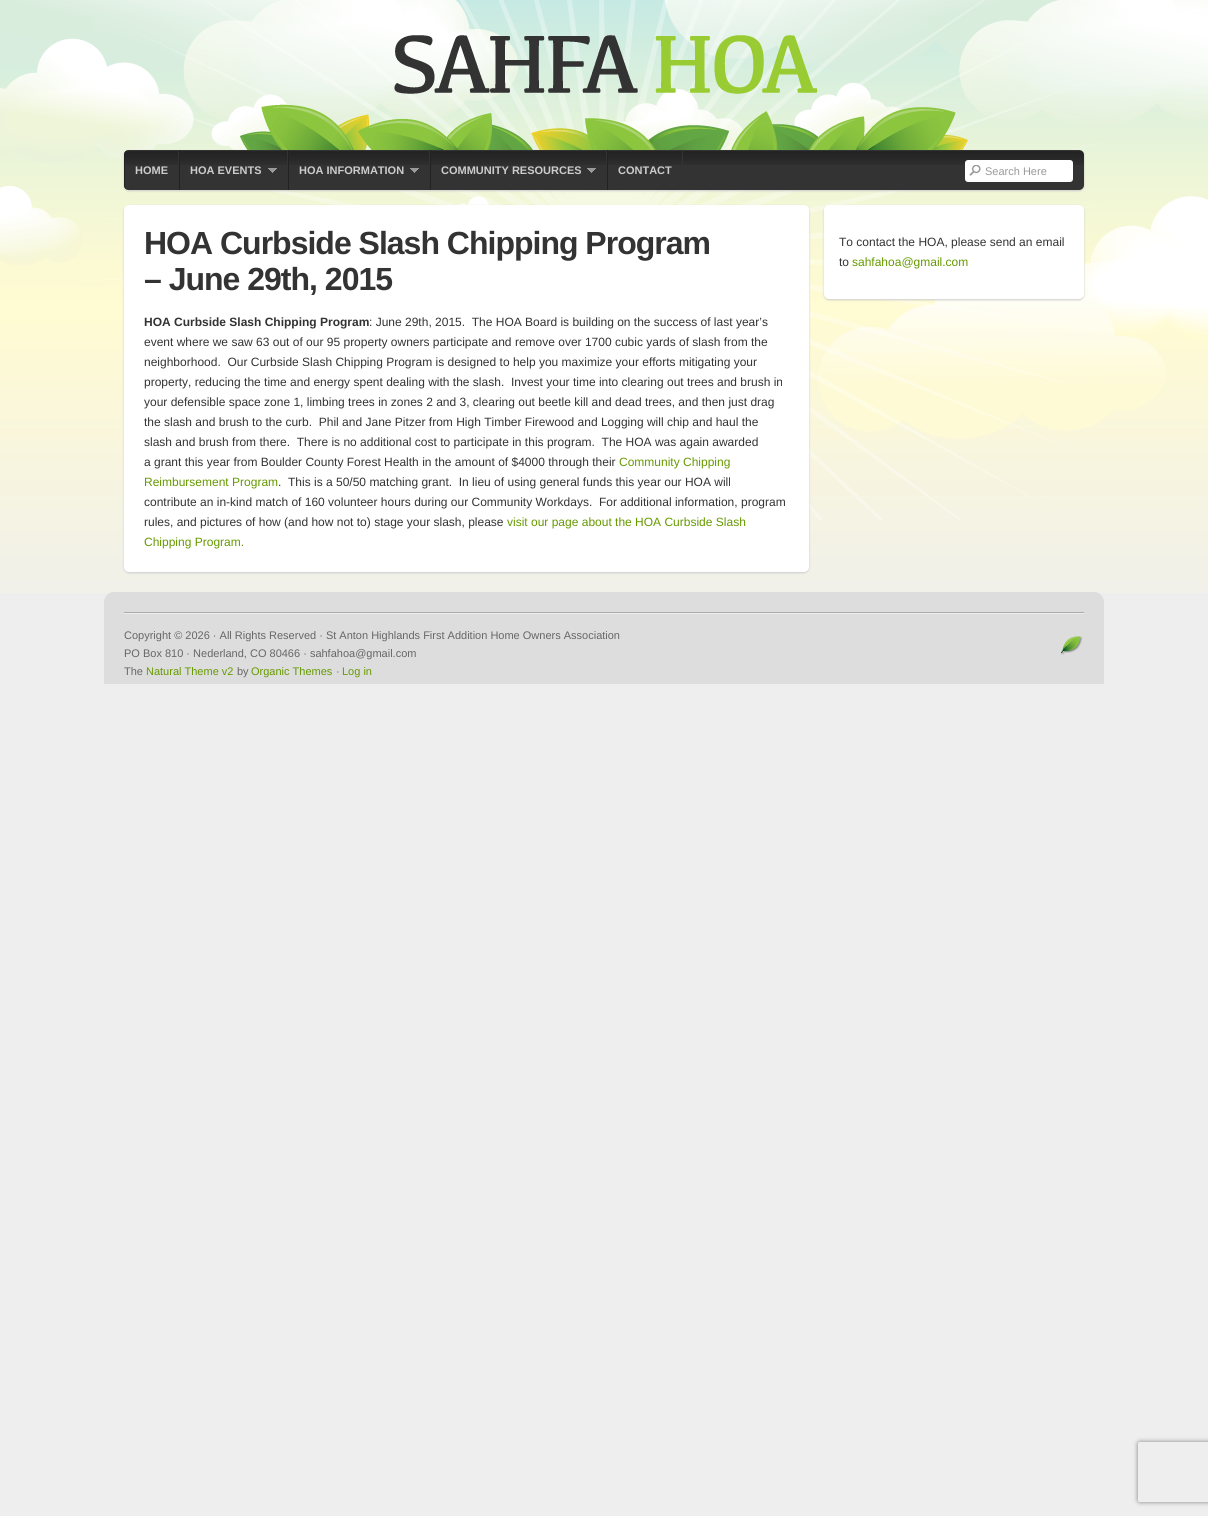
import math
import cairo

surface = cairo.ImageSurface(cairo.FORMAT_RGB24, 1208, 1516)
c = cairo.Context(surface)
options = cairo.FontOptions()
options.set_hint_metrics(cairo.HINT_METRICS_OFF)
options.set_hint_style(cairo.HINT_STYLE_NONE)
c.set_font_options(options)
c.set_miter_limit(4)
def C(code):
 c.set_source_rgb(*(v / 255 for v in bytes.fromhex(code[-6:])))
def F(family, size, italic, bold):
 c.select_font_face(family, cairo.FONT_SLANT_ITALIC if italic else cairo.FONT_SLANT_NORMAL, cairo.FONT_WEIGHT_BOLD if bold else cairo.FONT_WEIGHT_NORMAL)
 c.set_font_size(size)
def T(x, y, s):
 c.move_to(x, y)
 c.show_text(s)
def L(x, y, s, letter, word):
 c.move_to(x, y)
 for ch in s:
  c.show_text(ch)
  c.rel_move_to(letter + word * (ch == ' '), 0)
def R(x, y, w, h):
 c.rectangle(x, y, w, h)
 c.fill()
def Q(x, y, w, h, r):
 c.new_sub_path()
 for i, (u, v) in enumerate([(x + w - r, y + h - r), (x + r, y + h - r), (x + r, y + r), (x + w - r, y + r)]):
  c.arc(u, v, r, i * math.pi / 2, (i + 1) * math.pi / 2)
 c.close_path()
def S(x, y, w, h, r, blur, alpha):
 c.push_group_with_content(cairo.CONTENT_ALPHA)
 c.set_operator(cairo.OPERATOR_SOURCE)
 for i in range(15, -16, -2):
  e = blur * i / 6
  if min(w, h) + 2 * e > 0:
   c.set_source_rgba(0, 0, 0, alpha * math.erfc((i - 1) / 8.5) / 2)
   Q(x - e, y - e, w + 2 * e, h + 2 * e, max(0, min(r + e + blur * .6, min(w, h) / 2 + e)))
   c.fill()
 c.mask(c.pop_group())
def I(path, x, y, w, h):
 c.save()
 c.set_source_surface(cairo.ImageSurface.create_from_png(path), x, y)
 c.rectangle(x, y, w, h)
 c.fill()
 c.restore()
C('eeeeee')
c.paint()
I('1.png',0,0,1208,593)
C('cccccc')
S(124,151,960,40,5,1,1)
I('2.png',240,35,728,115)
C('333333')
Q(124,150,960,40,5)
c.fill()
I('3.png',124,151,960,14)
R(178,150,1,15)
C('222222')
c.new_path()
c.move_to(129,150)
c.curve_to(126,150,124,152,124,155)
c.line_to(124,185)
c.curve_to(124,188,126,190,129,190)
c.curve_to(127,190,125,188,125,185)
c.line_to(125,155)
c.curve_to(125,152,127,150,129,150)
c.close_path()
c.fill()
F('Liberation Sans',11,0,1)
C('cccccc')
T(135,174,'HOME')
C('333333')
R(287,150,1,15)
C('222222')
R(179,150,1,40)
C('cccccc')
T(190,174,'HOA EVENTS')
I('4.png',268,168,9,5)
C('333333')
R(429,150,1,15)
C('222222')
R(288,150,1,40)
C('cccccc')
T(299,174,'HOA INFORMATION')
I('4.png',410,168,9,5)
C('333333')
R(606,150,1,15)
C('222222')
R(430,150,1,40)
C('cccccc')
T(441,174,'COMMUNITY RESOURCES')
I('4.png',587,168,9,5)
C('333333')
R(682,150,1,15)
C('222222')
R(607,150,1,40)
C('cccccc')
T(618,174,'CONTACT')
C('ffffff')
Q(965,160,108,22,3)
c.fill()
I('5.png',969,165,12,11)
F('Liberation Sans',11,0,0)
C('999999')
T(985,175,'Search Here')
C('cccccc')
S(124,206,685,367,5,1,1)
C('ffffff')
Q(124,205,685,367,5)
c.fill()
F('Liberation Sans',32,0,1)
C('333333')
L(144,254,'HOA Curbside Slash Chipping Program',-1,0)
L(144,290,'– June 29th, 2015',-1,0)
F('Liberation Sans',12,0,1)
T(144,326,'HOA Curbside Slash Chipping Program')
F('Liberation Sans',12,0,0)
T(369,326,': June 29th, 2015.  The HOA Board is building on the success of last year’s')
T(144,346,'event where we saw 63 out of our 95 property owners participate and remove over 1700 cubic yards of slash from the')
T(144,366,'neighborhood.  Our Curbside Slash Chipping Program is designed to help you maximize your efforts mitigating your')
T(144,386,'property, reducing the time and energy spent dealing with the slash.  Invest your time into clearing out trees and brush in')
T(144,406,'your defensible space zone 1, limbing trees in zones 2 and 3, clearing out beetle kill and dead trees, and then just drag')
T(144,426,'the slash and brush to the curb.  Phil and Jane Pitzer from High Timber Firewood and Logging will chip and haul the')
T(144,446,'slash and brush from there.  There is no additional cost to participate in this program.  The HOA was again awarded')
T(144,466,'a grant this year from Boulder County Forest Health in the amount of $4000 through their')
C('669900')
T(619,466,'Community Chipping')
T(144,486,'Reimbursement Program')
C('333333')
T(278,486,'.  This is a 50/50 matching grant.  In lieu of using general funds this year our HOA will')
T(144,506,'contribute an in-kind match of 160 volunteer hours during our Community Workdays.  For additional information, program')
T(144,526,'rules, and pictures of how (and how not to) stage your slash, please')
C('669900')
T(507,526,'visit our page about the HOA Curbside Slash')
T(144,546,'Chipping Program.')
C('cccccc')
S(824,206,260,94,5,1,1)
C('ffffff')
Q(824,205,260,94,5)
c.fill()
C('333333')
T(839,246,'To contact the HOA, please send an email')
T(839,266,'to')
C('669900')
T(852,266,'sahfahoa@gmail.com')
C('dddddd')
c.new_path()
c.move_to(114,592)
c.line_to(1094,592)
c.curve_to(1099.5,592,1104,596.5,1104,602)
c.line_to(1104,613)
c.line_to(104,613)
c.line_to(104,602)
c.curve_to(104,596.5,108.5,592,114,592)
c.close_path()
c.fill()
C('aaaaaa')
R(124,612,960,1)
C('dddddd')
R(104,613,1000,71)
C('eeeeee')
R(124,613,960,1)
F('Liberation Sans',11,0,0)
C('666666')
T(124,639,'Copyright © 2026 · All Rights Reserved · St Anton Highlands First Addition Home Owners Association')
T(124,657,'PO Box 810 · Nederland, CO 80466 · sahfahoa@gmail.com')
T(124,675,'The')
C('669900')
T(146,675,'Natural Theme v2')
C('666666')
T(237,675,'by')
C('669900')
T(251,675,'Organic Themes')
C('666666')
T(336,675,'·')
C('669900')
T(342,675,'Log in')
I('6.png',1061,636,22,19)
c.save()
c.set_fill_rule(cairo.FILL_RULE_EVEN_ODD)
c.new_path()
c.move_to(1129,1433)
c.line_to(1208,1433)
c.line_to(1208,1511)
c.line_to(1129,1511)
c.close_path()
c.move_to(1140,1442)
c.line_to(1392,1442)
c.curve_to(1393,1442,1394,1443,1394,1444)
c.line_to(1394,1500)
c.curve_to(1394,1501,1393,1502,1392,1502)
c.line_to(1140,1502)
c.curve_to(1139,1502,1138,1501,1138,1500)
c.line_to(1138,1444)
c.curve_to(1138,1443,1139,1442,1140,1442)
c.close_path()
c.clip()
C('808080')
S(1138,1442,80,60,2,2.5,1)
c.restore()
surface.write_to_png('o.png')
